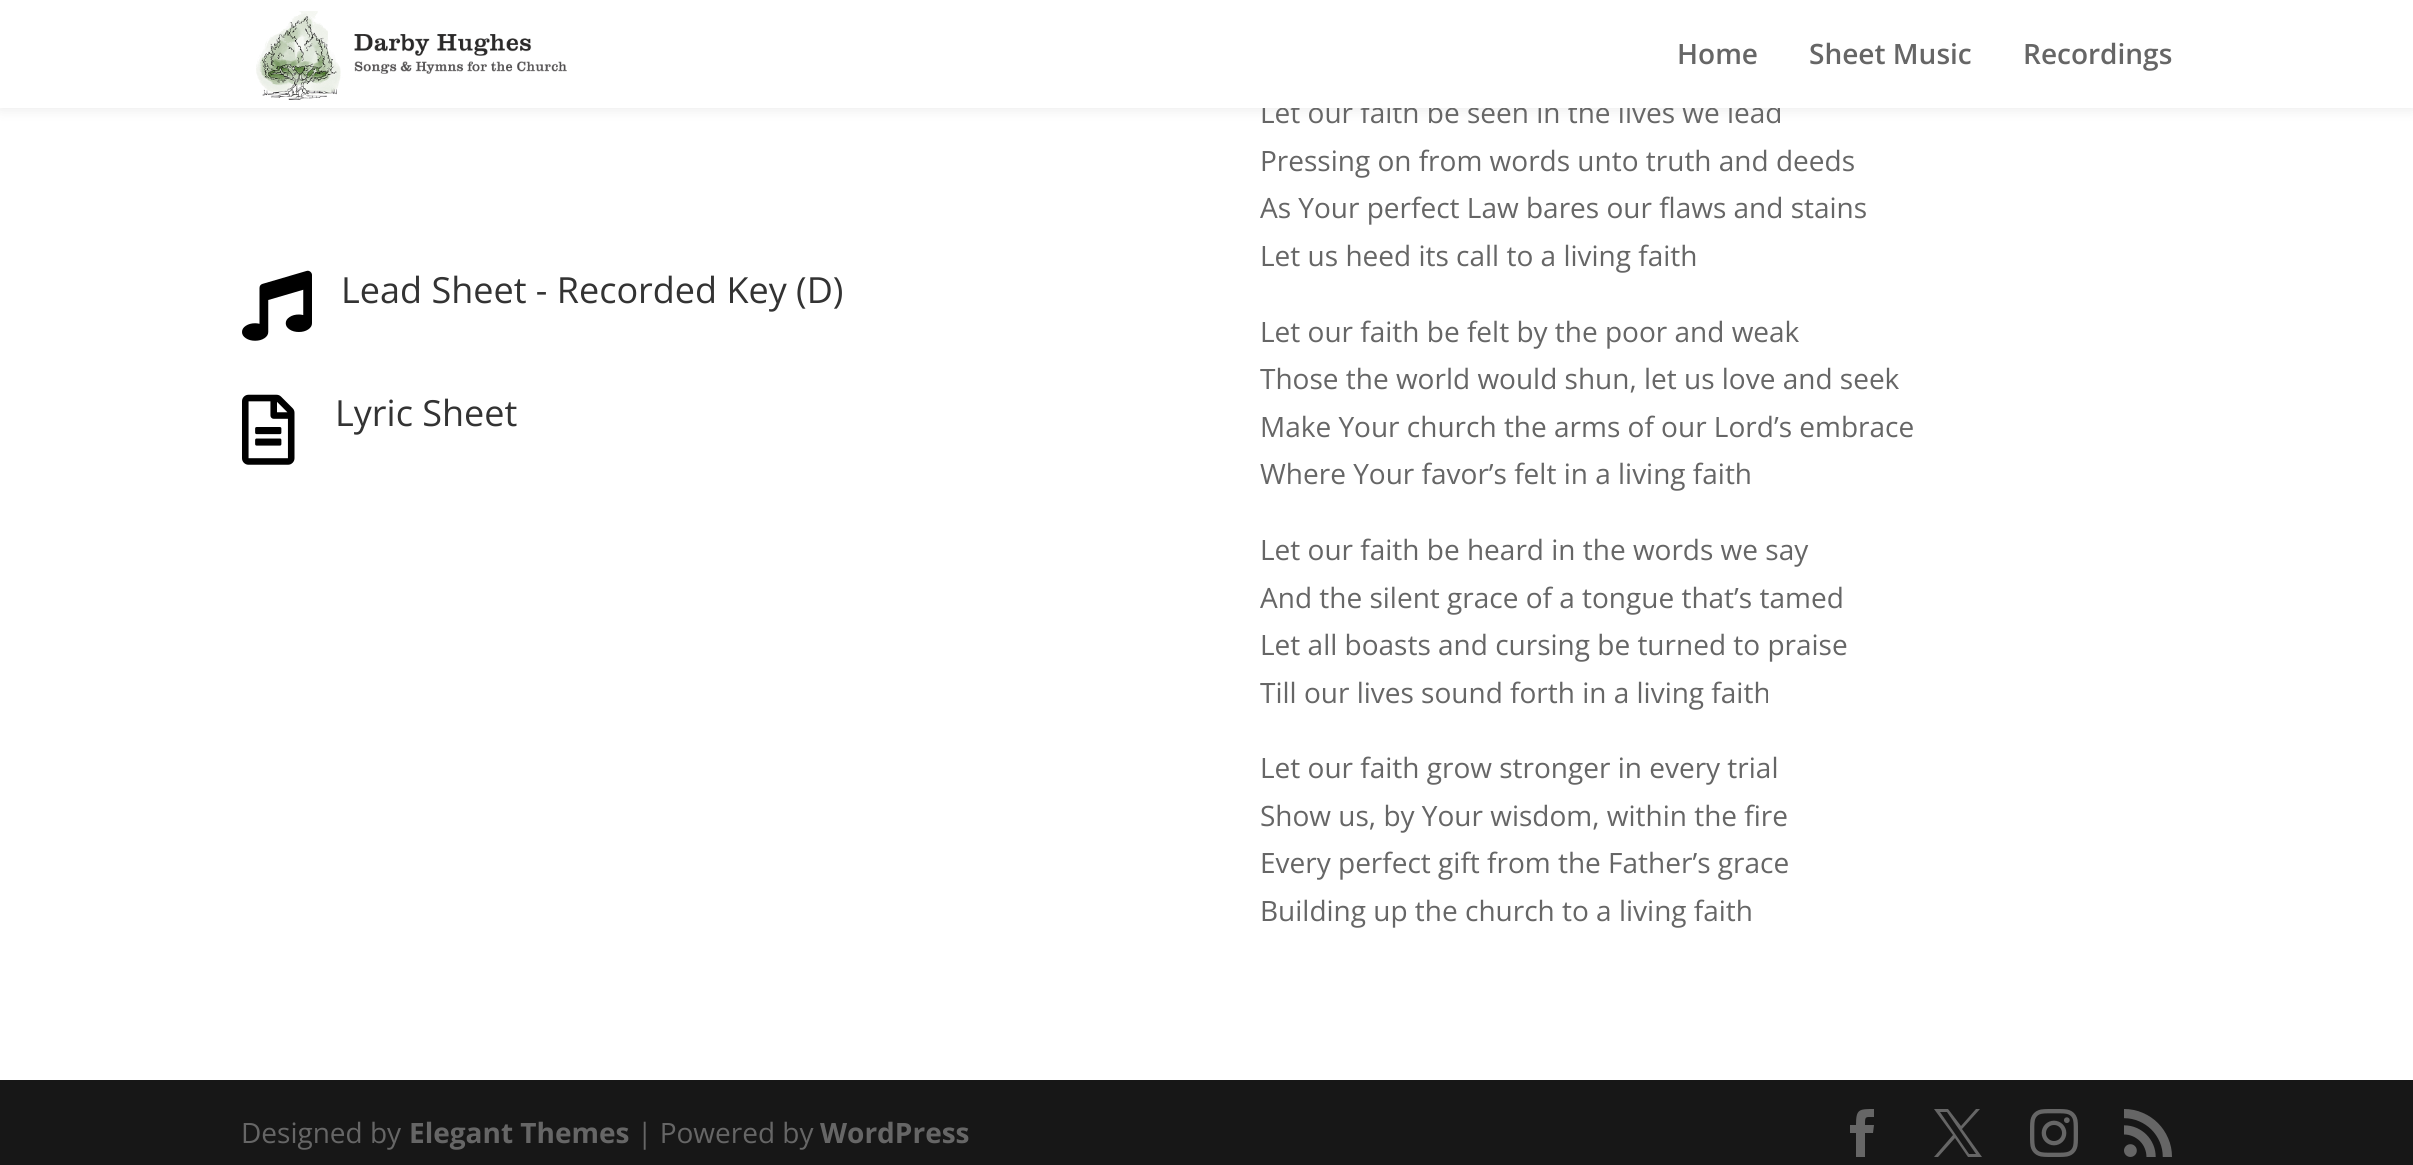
import math
import cairo

surface = cairo.ImageSurface(cairo.FORMAT_RGB24, 2413, 1165)
c = cairo.Context(surface)
options = cairo.FontOptions()
options.set_hint_metrics(cairo.HINT_METRICS_OFF)
options.set_hint_style(cairo.HINT_STYLE_NONE)
c.set_font_options(options)
c.set_miter_limit(4)
def C(code):
 c.set_source_rgb(*(v / 255 for v in bytes.fromhex(code[-6:])))
def F(family, size, italic, bold):
 c.select_font_face(family, cairo.FONT_SLANT_ITALIC if italic else cairo.FONT_SLANT_NORMAL, cairo.FONT_WEIGHT_BOLD if bold else cairo.FONT_WEIGHT_NORMAL)
 c.set_font_size(size)
def T(x, y, s):
 c.move_to(x, y)
 c.show_text(s)
def R(x, y, w, h):
 c.rectangle(x, y, w, h)
 c.fill()
def Q(x, y, w, h, r):
 c.new_sub_path()
 for i, (u, v) in enumerate([(x + w - r, y + h - r), (x + r, y + h - r), (x + r, y + r), (x + w - r, y + r)]):
  c.arc(u, v, r, i * math.pi / 2, (i + 1) * math.pi / 2)
 c.close_path()
def S(x, y, w, h, r, blur, alpha):
 c.push_group_with_content(cairo.CONTENT_ALPHA)
 c.set_operator(cairo.OPERATOR_SOURCE)
 for i in range(15, -16, -2):
  e = blur * i / 6
  if min(w, h) + 2 * e > 0:
   c.set_source_rgba(0, 0, 0, alpha * math.erfc((i - 1) / 8.5) / 2)
   Q(x - e, y - e, w + 2 * e, h + 2 * e, max(0, min(r + e + blur * .6, min(w, h) / 2 + e)))
   c.fill()
 c.mask(c.pop_group())
def I(path, x, y, w, h):
 c.save()
 c.set_source_surface(cairo.ImageSurface.create_from_png(path), x, y)
 c.rectangle(x, y, w, h)
 c.fill()
 c.restore()
C('ffffff')
c.paint()
C('000000')
S(0,0,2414,108,0,7,.1)
F('Open Sans',28,0,0)
C('666666')
T(1260,123,'Let our faith be seen in the lives we lead')
C('ffffff')
R(0,0,2413,108)
I('1.png',256,11,311,89)
F('Open Sans SemiBold',28,0,0)
C('666666')
T(1677,64,'Home')
T(1809,64,'Sheet Music')
T(2023,64,'Recordings')
I('2.png',242,270,70,71)
F('Open Sans',36,0,0)
C('333333')
T(341,303,'Lead Sheet - Recorded Key (D)')
I('3.png',242,394,53,71)
T(335,426,'Lyric Sheet')
F('Open Sans',28,0,0)
C('666666')
T(1260,171,'Pressing on from words unto truth and deeds')
T(1260,218,'As Your perfect Law bares our flaws and stains')
T(1260,266,'Let us heed its call to a living faith')
T(1260,342,'Let our faith be felt by the poor and weak')
T(1260,389,'Those the world would shun, let us love and seek')
T(1260,437,'Make Your church the arms of our Lord’s embrace')
T(1260,484,'Where Your favor’s felt in a living faith')
T(1260,560,'Let our faith be heard in the words we say')
T(1260,608,'And the silent grace of a tongue that’s tamed')
T(1260,655,'Let all boasts and cursing be turned to praise')
T(1260,703,'Till our lives sound forth in a living faith')
T(1260,778,'Let our faith grow stronger in every trial')
T(1260,826,'Show us, by Your wisdom, within the fire')
T(1260,873,'Every perfect gift from the Father’s grace')
T(1260,921,'Building up the church to a living faith')
C('171717')
R(0,1080,2413,85)
C('666666')
T(241,1143,'Designed by')
F('Open Sans',28,0,1)
T(409,1143,'Elegant Themes')
F('Open Sans',28,0,0)
T(637,1143,'| Powered by')
F('Open Sans',28,0,1)
T(820,1143,'WordPress')
c.new_path()
c.move_to(1856,1157)
c.line_to(1865,1157)
c.line_to(1865,1133)
c.line_to(1873,1133)
c.line_to(1874,1125)
c.line_to(1865,1125)
c.curve_to(1865,1116,1865,1117,1874,1117)
c.line_to(1874,1109)
c.curve_to(1859,1109,1856,1109,1856,1125)
c.line_to(1850,1125)
c.line_to(1850,1133)
c.line_to(1856,1133)
c.close_path()
c.fill()
c.new_path()
c.move_to(1934,1109)
c.line_to(1953,1135)
c.line_to(1934,1157)
c.line_to(1938,1157)
c.line_to(1955,1138)
c.line_to(1968,1157)
c.line_to(1982,1157)
c.line_to(1962,1129)
c.line_to(1980,1109)
c.line_to(1976,1109)
c.line_to(1961,1126)
c.line_to(1948,1109)
c.close_path()
c.move_to(1940,1112)
c.line_to(1947,1112)
c.line_to(1976,1154)
c.line_to(1969,1154)
c.close_path()
c.fill()
I('4.png',2030,1109,48,48)
I('5.png',2124,1109,48,48)
surface.write_to_png('o.png')
